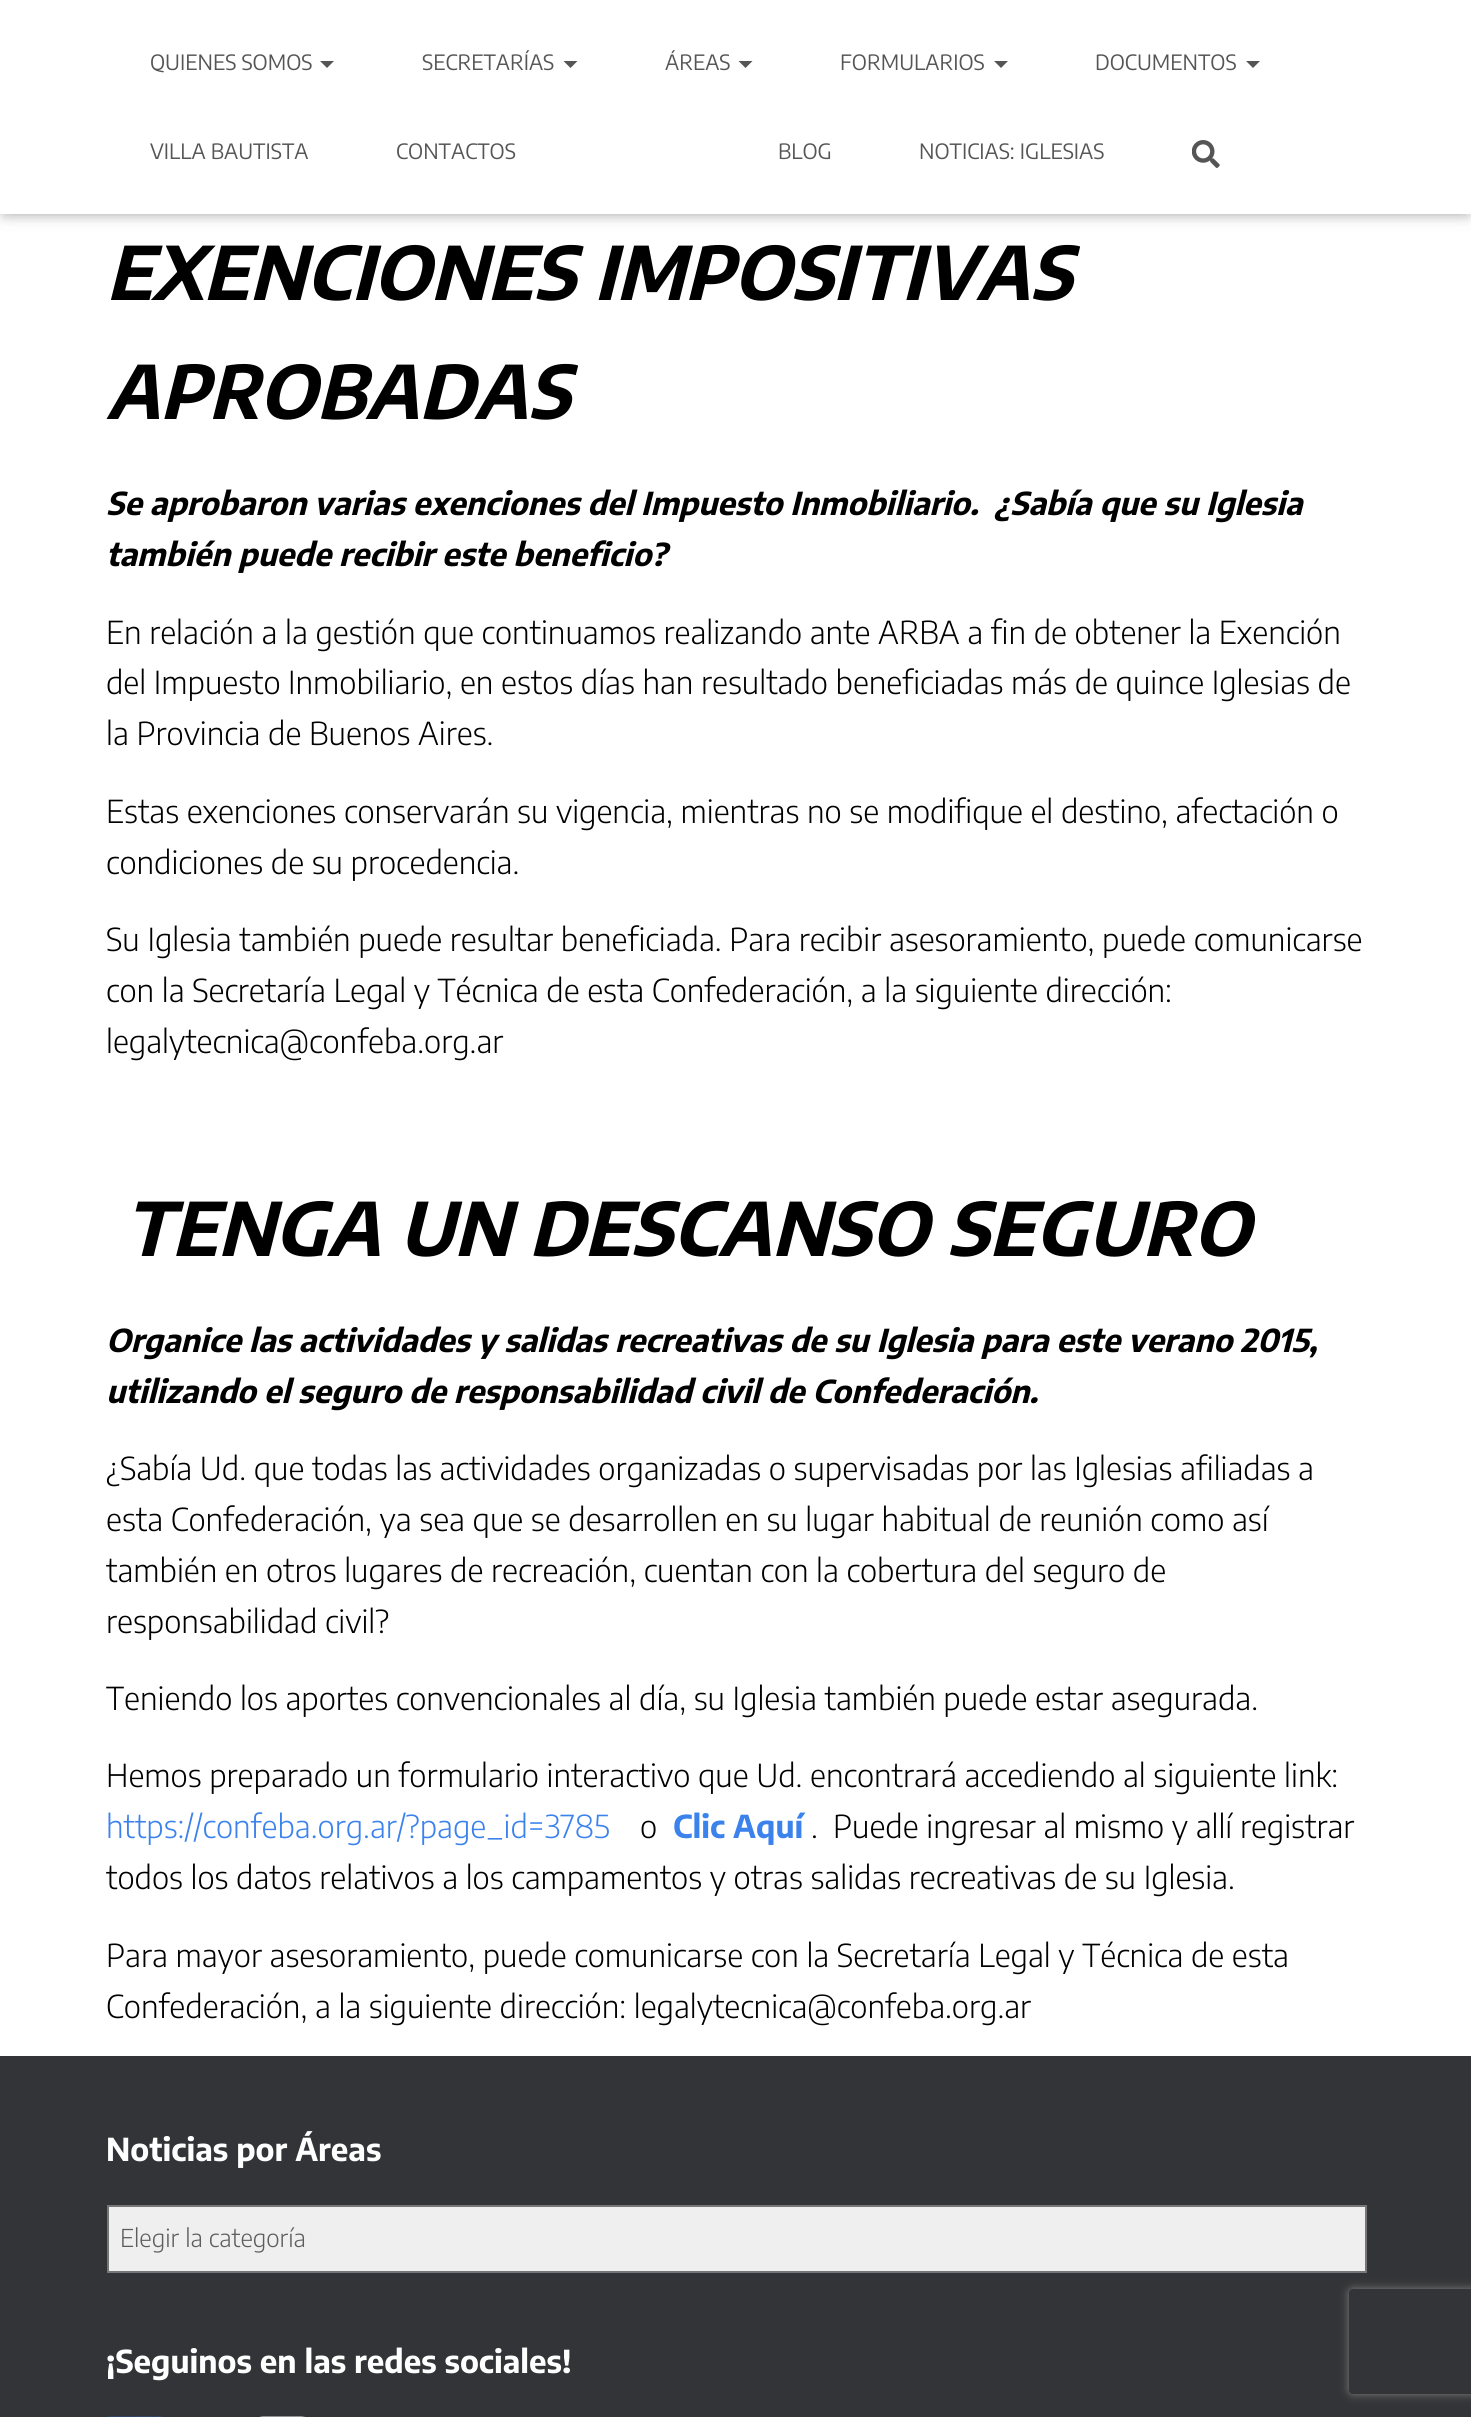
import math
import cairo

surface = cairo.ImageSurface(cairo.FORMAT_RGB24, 1471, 2417)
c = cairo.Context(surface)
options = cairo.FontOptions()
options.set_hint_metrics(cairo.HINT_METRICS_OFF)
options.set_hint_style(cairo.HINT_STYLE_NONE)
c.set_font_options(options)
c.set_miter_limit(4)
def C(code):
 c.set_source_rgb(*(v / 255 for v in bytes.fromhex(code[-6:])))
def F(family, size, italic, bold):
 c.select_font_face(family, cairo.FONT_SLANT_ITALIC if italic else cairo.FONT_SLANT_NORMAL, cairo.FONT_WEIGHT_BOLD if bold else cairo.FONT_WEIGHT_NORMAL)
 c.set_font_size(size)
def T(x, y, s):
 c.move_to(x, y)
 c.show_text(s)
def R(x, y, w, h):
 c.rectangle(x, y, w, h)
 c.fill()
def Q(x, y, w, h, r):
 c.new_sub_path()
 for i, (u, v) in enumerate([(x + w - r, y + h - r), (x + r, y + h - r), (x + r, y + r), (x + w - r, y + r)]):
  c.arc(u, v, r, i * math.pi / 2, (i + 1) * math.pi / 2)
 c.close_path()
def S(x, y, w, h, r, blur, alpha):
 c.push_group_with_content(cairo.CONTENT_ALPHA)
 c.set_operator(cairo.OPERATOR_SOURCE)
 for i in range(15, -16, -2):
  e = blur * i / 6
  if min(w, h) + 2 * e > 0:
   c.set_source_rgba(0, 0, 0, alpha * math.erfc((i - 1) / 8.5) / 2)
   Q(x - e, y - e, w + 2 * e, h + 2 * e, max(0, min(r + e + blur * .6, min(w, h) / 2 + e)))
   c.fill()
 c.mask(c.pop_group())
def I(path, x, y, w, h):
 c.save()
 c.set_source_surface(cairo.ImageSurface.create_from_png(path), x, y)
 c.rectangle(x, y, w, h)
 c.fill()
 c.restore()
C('323437')
c.paint()
C('ffffff')
R(0,214,1471,1842)
C('000000')
S(4,11,1464,206,0,4.5,.1)
S(0,2,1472,213,0,9,.12)
S(11,12,1450,193,0,9,.42)
C('ffffff')
R(0,0,1471,214)
F('Encode Sans Condensed',21,0,0)
C('555555')
T(150,70,'QUIENES SOMOS')
c.new_path()
c.move_to(320,61)
c.line_to(334,61)
c.line_to(327,68)
c.close_path()
c.fill()
T(422,70,'SECRETARÍAS')
c.new_path()
c.move_to(563.5,61)
c.line_to(577.5,61)
c.line_to(570.5,68)
c.close_path()
c.fill()
T(665,70,'ÁREAS')
c.new_path()
c.move_to(738.5,61)
c.line_to(752.5,61)
c.line_to(745.5,68)
c.close_path()
c.fill()
T(840,70,'FORMULARIOS')
c.new_path()
c.move_to(994,61)
c.line_to(1008,61)
c.line_to(1001,68)
c.close_path()
c.fill()
T(1095,70,'DOCUMENTOS')
c.new_path()
c.move_to(1246,61)
c.line_to(1260,61)
c.line_to(1253,68)
c.close_path()
c.fill()
T(150,159,'VILLA BAUTISTA')
T(396,159,'CONTACTOS')
T(778,159,'BLOG')
T(919,159,'NOTICIAS: IGLESIAS')
I('1.png',1192,140,28,28)
F('Encode Sans Condensed',73.5,1,1)
C('000000')
T(106,300,'EXENCIONES IMPOSITIVAS')
T(106,419,'APROBADAS')
F('Encode Sans Condensed',31.5,1,1)
T(106,515,'Se aprobaron varias exenciones del Impuesto Inmobiliario.  ¿Sabía que su Iglesia')
T(106,566,'también puede recibir este beneficio?')
F('Encode Sans Condensed Light',31.5,0,0)
T(106,644,'En relación a la gestión que continuamos realizando ante ARBA a fin de obtener la Exención')
T(106,694,'del Impuesto')
T(288,694,'Inmobiliario, en estos días han resultado beneficiadas más de quince Iglesias de')
T(106,745,'la Provincia de Buenos Aires.')
T(106,823,'Estas exenciones')
T(344,823,'conservarán su vigencia, mientras no se modifique el destino, afectación o')
T(106,874,'condiciones de su procedencia.')
T(106,951,'Su Iglesia también puede resultar beneficiada. Para recibir asesoramiento, puede comunicarse')
T(106,1002,'con la Secretaría Legal y Técnica de esta Confederación, a la siguiente dirección:')
T(106,1053,'legalytecnica@confeba.org.ar')
F('Encode Sans Condensed',73.5,1,1)
T(124,1256,'TENGA UN DESCANSO SEGURO')
F('Encode Sans Condensed',31.5,1,1)
T(106,1352,'Organice las actividades y salidas recreativas de su Iglesia para este verano 2015,')
T(106,1403,'utilizando el seguro de responsabilidad civil de Confederación.')
F('Encode Sans Condensed Light',31.5,0,0)
T(106,1480,'¿Sabía Ud. que todas las actividades organizadas o supervisadas por las Iglesias afiliadas a')
T(106,1531,'esta Confederación, ya sea que se desarrollen en su lugar habitual de reunión como así')
T(106,1582,'también en otros lugares de recreación, cuentan con la cobertura del seguro de')
T(106,1633,'responsabilidad civil?')
T(106,1710,'Teniendo los aportes convencionales al día, su Iglesia también puede estar asegurada.')
T(106,1787,'Hemos preparado un formulario interactivo que Ud. encontrará accediendo al siguiente link:')
C('3b82ed')
T(106,1838,'https://confeba.org.ar/?page_id=3785')
C('000000')
T(640,1838,'o')
F('Encode Sans Condensed',31.5,0,1)
C('3b82ed')
T(673,1838,'Clic Aquí')
F('Encode Sans Condensed Light',31.5,0,0)
C('000000')
T(811,1838,'.')
T(833,1838,'Puede ingresar al mismo y allí registrar')
T(106,1889,'todos los datos relativos a los campamentos y otras salidas recreativas de su Iglesia.')
T(106,1967,'Para mayor asesoramiento, puede comunicarse con la Secretaría Legal y Técnica de esta')
T(106,2018,'Confederación, a la siguiente dirección: legalytecnica@confeba.org.ar')
F('Encode Sans Condensed',31.5,0,1)
C('ffffff')
T(106,2161,'Noticias por Áreas')
C('efefef')
c.rectangle(108,2206,1258,66)
c.fill_preserve()
C('767676')
c.stroke()
F('Encode Sans Condensed Light',24.5,0,0)
C('5e5e5e')
T(120,2247,'Elegir la categoría')
F('Encode Sans Condensed',31.5,0,1)
C('ffffff')
T(106,2373,'¡Seguinos en las redes sociales!')
I('2.png',106,2416,57,1)
I('3.png',259,2416,47,1)
c.save()
c.set_fill_rule(cairo.FILL_RULE_EVEN_ODD)
c.new_path()
c.move_to(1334,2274)
c.line_to(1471,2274)
c.line_to(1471,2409)
c.line_to(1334,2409)
c.close_path()
c.move_to(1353,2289)
c.line_to(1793,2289)
c.curve_to(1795,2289,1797,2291,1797,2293)
c.line_to(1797,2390)
c.curve_to(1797,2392,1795,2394,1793,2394)
c.line_to(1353,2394)
c.curve_to(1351,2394,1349,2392,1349,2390)
c.line_to(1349,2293)
c.curve_to(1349,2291,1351,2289,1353,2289)
c.close_path()
c.clip()
C('808080')
S(1349,2289,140,105,4,4.5,1)
c.restore()
surface.write_to_png('o.png')
